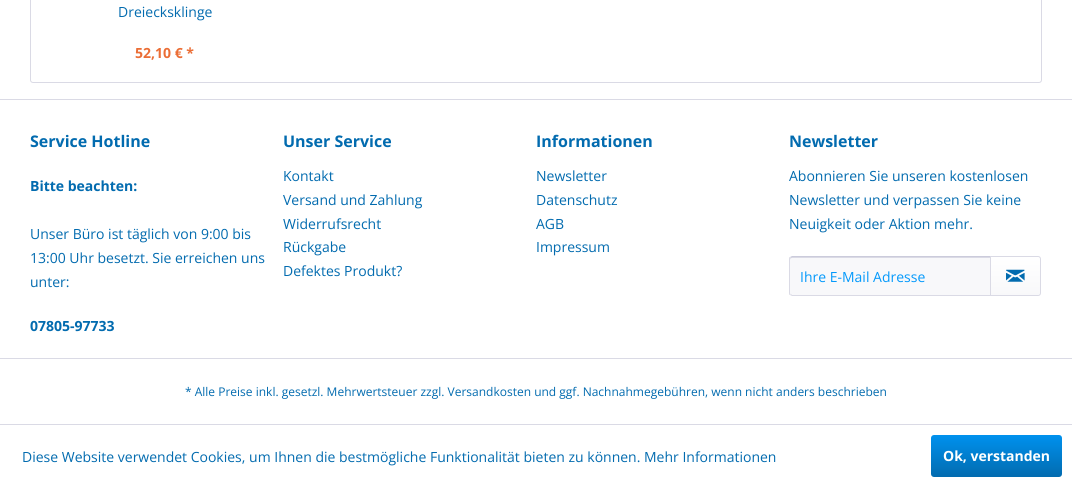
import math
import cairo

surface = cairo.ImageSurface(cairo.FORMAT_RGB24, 1072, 488)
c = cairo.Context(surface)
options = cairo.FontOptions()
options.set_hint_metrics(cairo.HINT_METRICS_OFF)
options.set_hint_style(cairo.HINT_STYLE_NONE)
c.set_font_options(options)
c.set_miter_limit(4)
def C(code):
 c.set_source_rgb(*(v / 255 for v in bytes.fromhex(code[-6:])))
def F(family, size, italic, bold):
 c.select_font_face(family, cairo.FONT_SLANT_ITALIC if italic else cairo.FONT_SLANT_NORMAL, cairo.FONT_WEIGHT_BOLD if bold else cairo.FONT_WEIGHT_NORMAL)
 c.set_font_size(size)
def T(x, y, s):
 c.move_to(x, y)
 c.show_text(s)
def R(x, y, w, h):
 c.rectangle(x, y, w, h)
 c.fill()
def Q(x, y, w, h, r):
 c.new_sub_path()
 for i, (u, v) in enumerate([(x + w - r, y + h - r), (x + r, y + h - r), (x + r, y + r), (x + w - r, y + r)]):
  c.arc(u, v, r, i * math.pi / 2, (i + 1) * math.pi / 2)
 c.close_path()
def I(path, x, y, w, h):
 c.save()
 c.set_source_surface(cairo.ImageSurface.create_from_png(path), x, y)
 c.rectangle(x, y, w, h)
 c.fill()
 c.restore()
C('ffffff')
c.paint()
Q(30.5,-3.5,1011,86,2.5)
C('dadae5')
c.set_line_width(1)
c.stroke()
F('Open Sans',14,0,0)
C('026baf')
T(118,17,'Dreiecksklinge')
F('Open Sans',14,0,1)
C('eb6e36')
T(135,58,'52,10 € *')
C('dadae5')
R(0,99,1072,1)
R(0,358,1072,1)
F('Open Sans',16,0,1)
C('026baf')
T(30,147,'Service Hotline')
F('Open Sans',14,0,1)
T(30,191,'Bitte beachten:')
F('Open Sans',14,0,0)
T(30,239,'Unser Büro ist täglich von 9:00 bis')
T(30,263,'13:00 Uhr besetzt. Sie erreichen uns')
T(30,287,'unter:')
F('Open Sans',14,0,1)
T(30,331,'07805-97733')
F('Open Sans',16,0,1)
T(283,147,'Unser Service')
F('Open Sans',14,0,0)
T(283,181,'Kontakt')
T(283,205,'Versand und Zahlung')
T(283,229,'Widerrufsrecht')
T(283,252,'Rückgabe')
T(283,276,'Defektes Produkt?')
F('Open Sans',16,0,1)
T(536,147,'Informationen')
F('Open Sans',14,0,0)
T(536,181,'Newsletter')
T(536,205,'Datenschutz')
T(536,229,'AGB')
T(536,252,'Impressum')
F('Open Sans',16,0,1)
T(789,147,'Newsletter')
F('Open Sans',14,0,0)
T(789,181,'Abonnieren Sie unseren kostenlosen')
T(789,205,'Newsletter und verpassen Sie keine')
T(789,229,'Neuigkeit oder Aktion mehr.')
C('f8f8fa')
c.new_path()
c.move_to(792,257)
c.line_to(990,257)
c.line_to(990,295)
c.line_to(792,295)
c.curve_to(791,295,790,294,790,293)
c.line_to(790,259)
c.curve_to(790,258,791,257,792,257)
c.close_path()
c.fill()
C('dadae5')
c.new_path()
c.move_to(792,258)
c.line_to(990,258)
c.line_to(990,257)
c.line_to(792,257)
c.curve_to(790,257,790,259,790,260)
c.curve_to(790,259,791,258,792,258)
c.close_path()
c.fill()
C('cbcbdb')
c.new_path()
c.move_to(792,256)
c.line_to(790,257)
c.line_to(791,258)
c.line_to(792,257)
c.line_to(990,257)
c.line_to(991,256)
c.close_path()
c.fill()
C('dadae5')
c.new_path()
c.move_to(991,296)
c.line_to(990,295)
c.line_to(792,295)
c.line_to(791,294)
c.line_to(790,295)
c.line_to(792,296)
c.close_path()
c.fill()
c.new_path()
c.move_to(789,259)
c.line_to(789,293)
c.curve_to(789,294,789,295,790,295)
c.line_to(790.5,294.5)
c.line_to(790,293)
c.line_to(790,259)
c.line_to(790.5,257.5)
c.line_to(790,257)
c.curve_to(789,257,789,258,789,259)
c.close_path()
c.fill()
C('0399fb')
T(800,282,'Ihre E-Mail Adresse')
gradient = cairo.LinearGradient(1016,257,1016,295)
gradient.add_color_stop_rgba(0,1,1,1,1)
gradient.add_color_stop_rgba(1,0.973,0.973,0.98,1)
c.set_source(gradient)
c.new_path()
c.move_to(991,257)
c.line_to(1038,257)
c.curve_to(1039,257,1040,258,1040,259)
c.line_to(1040,293)
c.curve_to(1040,294,1039,295,1038,295)
c.line_to(991,295)
c.close_path()
c.fill()
c.new_path()
c.move_to(990.5,256.5)
c.line_to(1038,256.5)
c.curve_to(1039.5,256.5,1040.5,257.5,1040.5,259)
c.line_to(1040.5,293)
c.curve_to(1040.5,294.5,1039.5,295.5,1038,295.5)
c.line_to(990.5,295.5)
c.close_path()
C('dadae5')
c.stroke()
I('1.png',1006,269,19,13)
F('Open Sans',12,0,0)
C('026baf')
T(185,396,'* Alle Preise inkl. gesetzl. Mehrwertsteuer zzgl. Versandkosten und ggf. Nachnahmegebühren, wenn nicht anders beschrieben')
C('dadae5')
R(0,424,1072,1)
F('Open Sans',14,0,0)
C('026baf')
T(22,462,'Diese Website verwendet Cookies, um Ihnen die bestmögliche Funktionalität bieten zu können. Mehr Informationen')
gradient = cairo.LinearGradient(997,435,997,477)
gradient.add_color_stop_rgba(0,0,0.569,0.933,1)
gradient.add_color_stop_rgba(1,0.008,0.42,0.686,1)
c.set_source(gradient)
Q(931,435,131,42,3)
c.fill()
F('Open Sans',14,0,1)
C('ffffff')
T(943,461,'Ok, verstanden')
surface.write_to_png('o.png')
